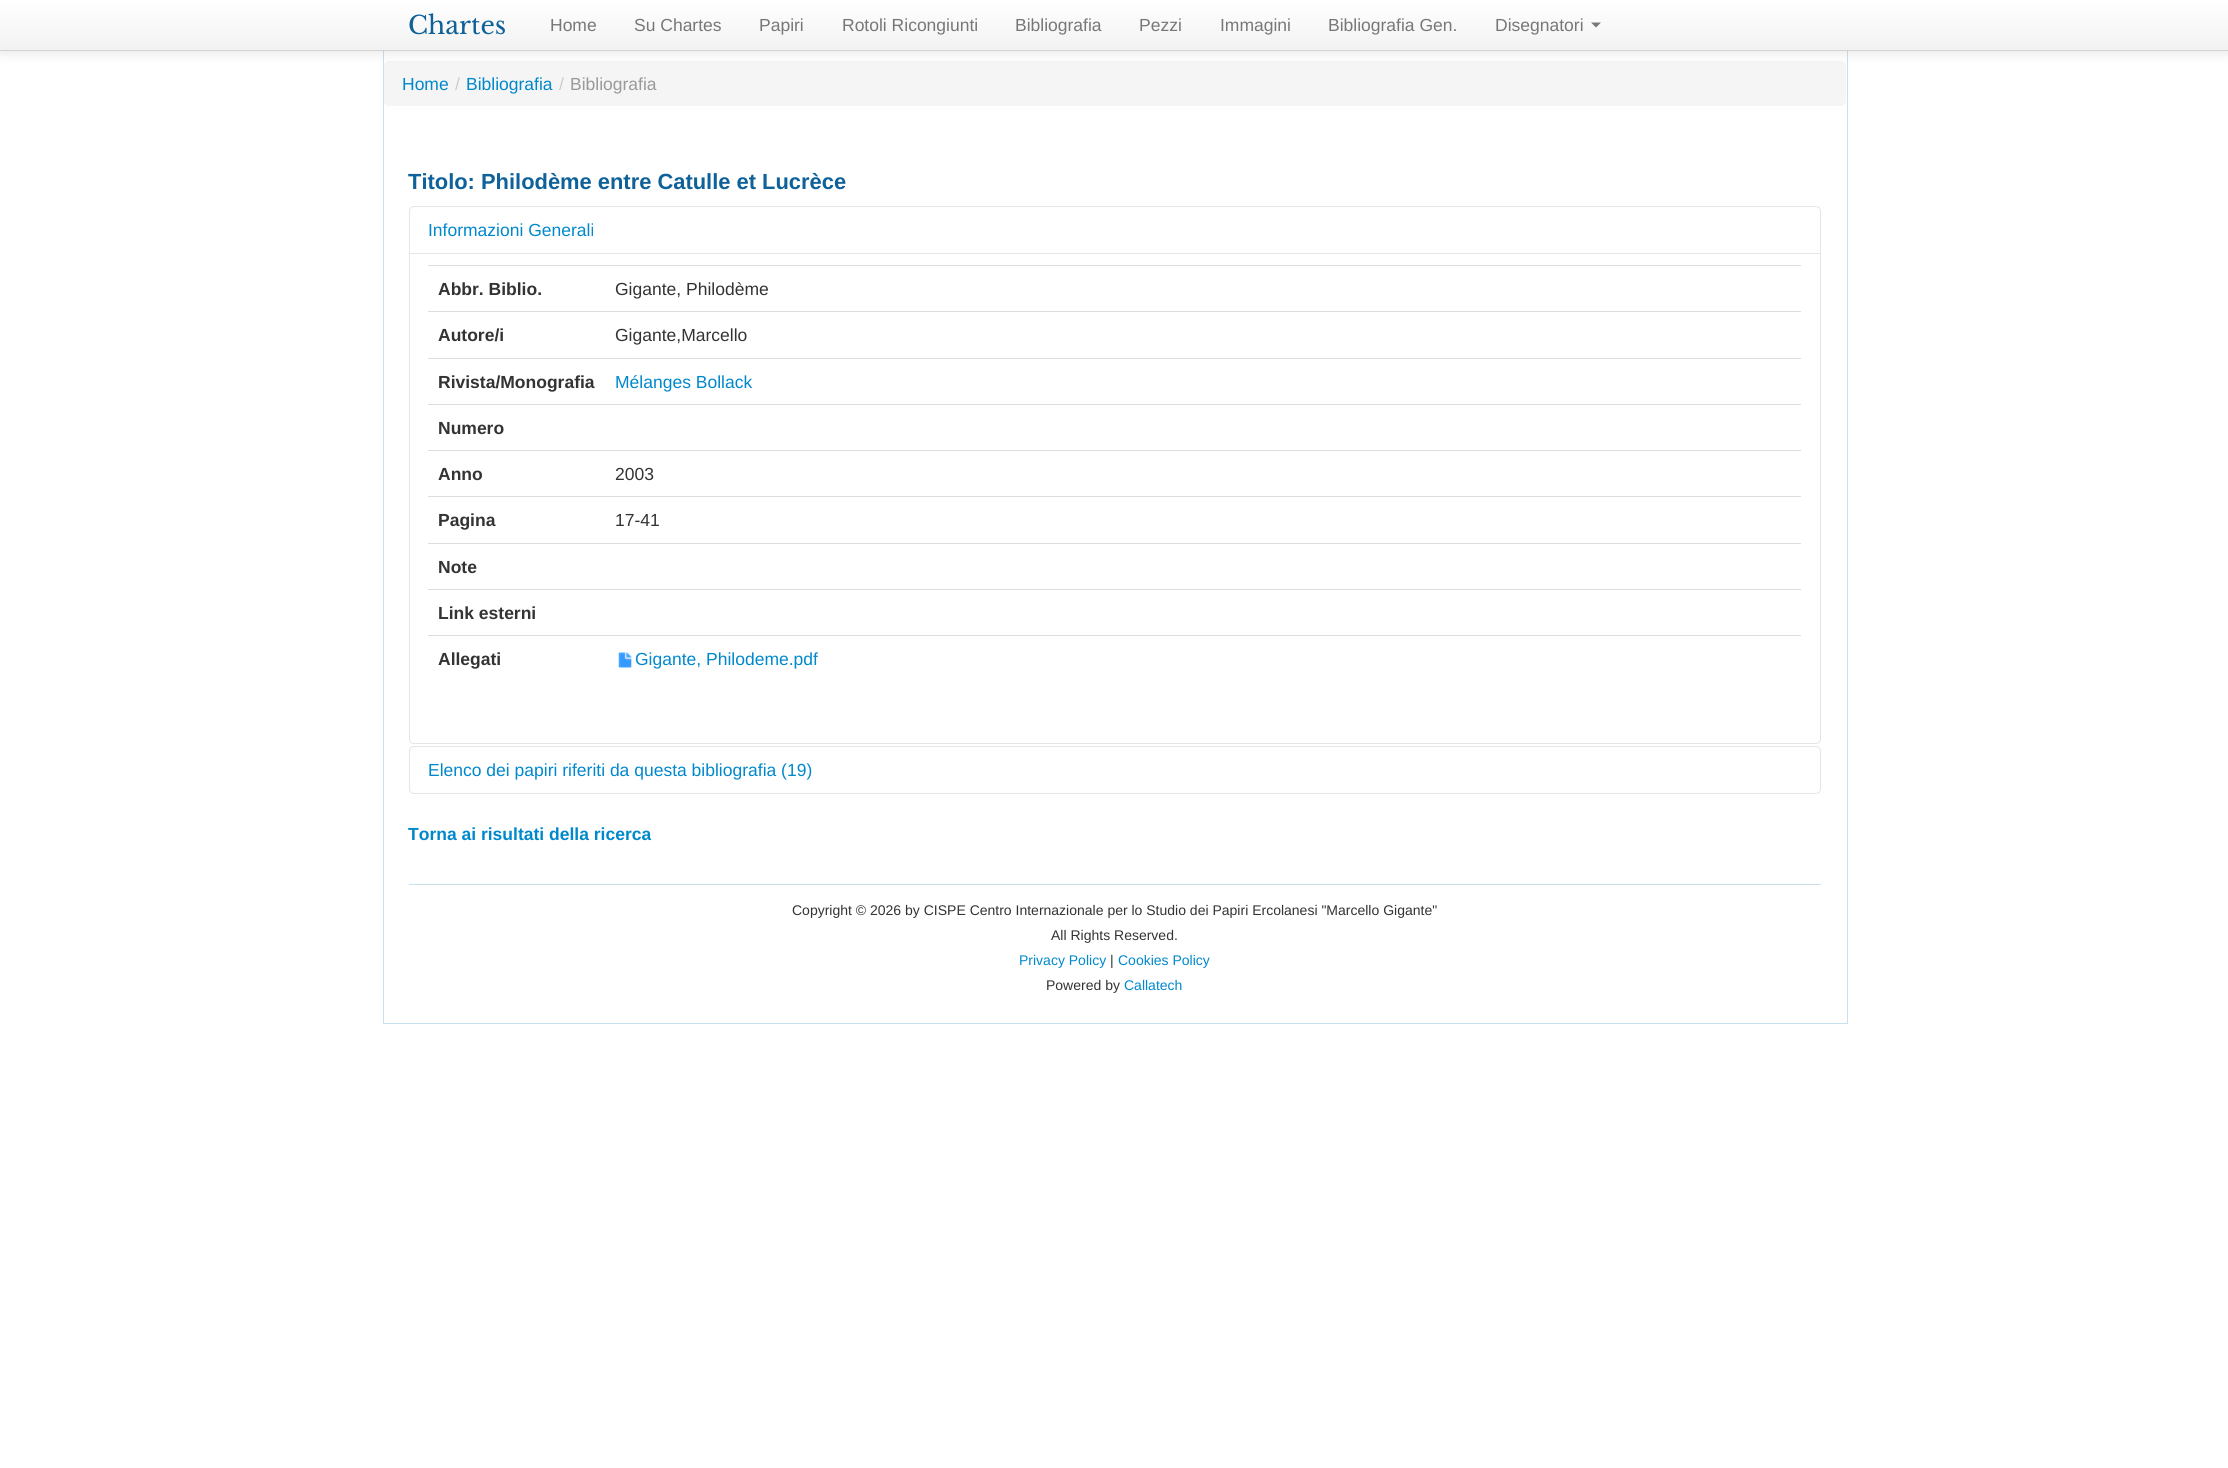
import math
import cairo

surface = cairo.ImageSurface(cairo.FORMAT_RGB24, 2228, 1468)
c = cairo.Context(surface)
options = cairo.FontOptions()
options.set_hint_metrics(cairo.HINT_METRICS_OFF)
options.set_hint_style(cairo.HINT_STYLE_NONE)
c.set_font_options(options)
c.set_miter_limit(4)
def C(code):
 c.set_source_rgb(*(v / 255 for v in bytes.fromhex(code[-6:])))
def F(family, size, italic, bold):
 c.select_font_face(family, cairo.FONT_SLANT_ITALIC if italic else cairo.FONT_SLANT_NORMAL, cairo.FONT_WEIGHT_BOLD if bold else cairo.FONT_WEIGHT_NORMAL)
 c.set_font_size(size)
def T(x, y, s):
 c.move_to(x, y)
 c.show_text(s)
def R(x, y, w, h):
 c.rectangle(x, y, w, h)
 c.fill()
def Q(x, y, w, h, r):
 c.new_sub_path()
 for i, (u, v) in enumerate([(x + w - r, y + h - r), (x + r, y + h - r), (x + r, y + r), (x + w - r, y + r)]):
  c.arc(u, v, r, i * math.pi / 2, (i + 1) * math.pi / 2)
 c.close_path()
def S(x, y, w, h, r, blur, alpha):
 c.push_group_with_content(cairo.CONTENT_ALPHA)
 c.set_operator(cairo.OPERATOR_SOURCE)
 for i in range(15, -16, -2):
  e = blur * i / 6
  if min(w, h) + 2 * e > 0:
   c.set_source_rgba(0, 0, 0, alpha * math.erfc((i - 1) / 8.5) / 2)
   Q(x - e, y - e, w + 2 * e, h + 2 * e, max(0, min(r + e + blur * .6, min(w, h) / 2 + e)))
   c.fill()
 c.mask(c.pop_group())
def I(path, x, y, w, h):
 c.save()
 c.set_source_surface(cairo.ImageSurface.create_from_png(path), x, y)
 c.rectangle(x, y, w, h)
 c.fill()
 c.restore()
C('ffffff')
c.paint()
c.rectangle(383.5,6.5,1464,1017)
C('c9e0ed')
c.set_line_width(1)
c.stroke()
C('f5f5f5')
Q(384,61,1462,45,5)
c.fill()
C('000000')
S(0,1,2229,52,0,6,.1)
gradient = cairo.LinearGradient(1114,0,1114,50)
gradient.add_color_stop_rgba(0,1,1,1,1)
gradient.add_color_stop_rgba(1,0.949,0.949,0.949,1)
c.set_source(gradient)
R(0,0,2228,50)
C('d4d4d4')
R(0,50,2228,1)
F('Libre Baskerville',25,0,0)
C('0e6199')
T(408,34,'Chartes')
F('Liberation Sans',17.5,0,0)
C('777777')
T(550,31,'Home')
T(634,31,'Su Chartes')
T(759,31,'Papiri')
T(842,31,'Rotoli Ricongiunti')
T(1015,31,'Bibliografia')
T(1139,31,'Pezzi')
T(1220,31,'Immagini')
T(1328,31,'Bibliografia Gen.')
T(1495,31,'Disegnatori')
c.new_path()
c.move_to(1591,22.5)
c.line_to(1601,22.5)
c.line_to(1596,27.5)
c.close_path()
c.fill()
C('0088cc')
T(402,90,'Home')
C('cccccc')
T(455,90,'/')
C('0088cc')
T(466,90,'Bibliografia')
C('cccccc')
T(559,90,'/')
C('999999')
T(570,90,'Bibliografia')
F('Liberation Sans',21.9,0,1)
C('0e6199')
T(408,189,'Titolo: Philodème entre Catulle et Lucrèce')
Q(409.5,206.5,1411,537,4.5)
C('e5e5e5')
c.stroke()
F('Liberation Sans',17.5,0,0)
C('0088cc')
T(428,236,'Informazioni Generali')
C('e5e5e5')
R(410,253,1410,1)
F('Liberation Sans',17.5,0,1)
C('333333')
T(438,295,'Abbr. Biblio.')
C('dddddd')
R(428,265,1373,1)
F('Liberation Sans',17.5,0,0)
C('333333')
T(615,295,'Gigante, Philodème')
F('Liberation Sans',17.5,0,1)
T(438,341,'Autore/i')
C('dddddd')
R(428,311,1373,1)
F('Liberation Sans',17.5,0,0)
C('333333')
T(615,341,'Gigante,Marcello')
F('Liberation Sans',17.5,0,1)
T(438,388,'Rivista/Monografia')
C('dddddd')
R(428,358,1373,1)
F('Liberation Sans',17.5,0,0)
C('0088cc')
T(615,388,'Mélanges Bollack')
C('dddddd')
R(428,404,1373,1)
F('Liberation Sans',17.5,0,1)
C('333333')
T(438,434,'Numero')
T(438,480,'Anno')
C('dddddd')
R(428,450,1373,1)
F('Liberation Sans',17.5,0,0)
C('333333')
T(615,480,'2003')
F('Liberation Sans',17.5,0,1)
T(438,526,'Pagina')
C('dddddd')
R(428,496,1373,1)
F('Liberation Sans',17.5,0,0)
C('333333')
T(615,526,'17-41')
C('dddddd')
R(428,543,1373,1)
F('Liberation Sans',17.5,0,1)
C('333333')
T(438,573,'Note')
C('dddddd')
R(428,589,1373,1)
C('333333')
T(438,619,'Link esterni')
T(438,665,'Allegati')
C('dddddd')
R(428,635,1373,1)
I('1.png',618,652,14,16)
F('Liberation Sans',17.5,0,0)
C('0088cc')
T(635,665,'Gigante, Philodeme.pdf')
Q(409.5,746.5,1411,47,4.5)
C('e5e5e5')
c.stroke()
C('0088cc')
T(428,776,'Elenco dei papiri riferiti da questa bibliografia (19)')
F('Liberation Sans',17.5,0,1)
T(408,840,'Torna ai risultati della ricerca')
C('c9e0ed')
R(409,884,1412,1)
F('Liberation Sans',14,0,0)
C('333333')
T(792,915,'Copyright © 2026 by CISPE Centro Internazionale per lo Studio dei Papiri Ercolanesi "Marcello Gigante"')
T(1051,940,'All Rights Reserved.')
C('0088cc')
T(1019,965,'Privacy Policy')
C('333333')
T(1110,965,'|')
C('0088cc')
T(1118,965,'Cookies Policy')
C('333333')
T(1046,990,'Powered by')
C('0088cc')
T(1124,990,'Callatech')
surface.write_to_png('o.png')
